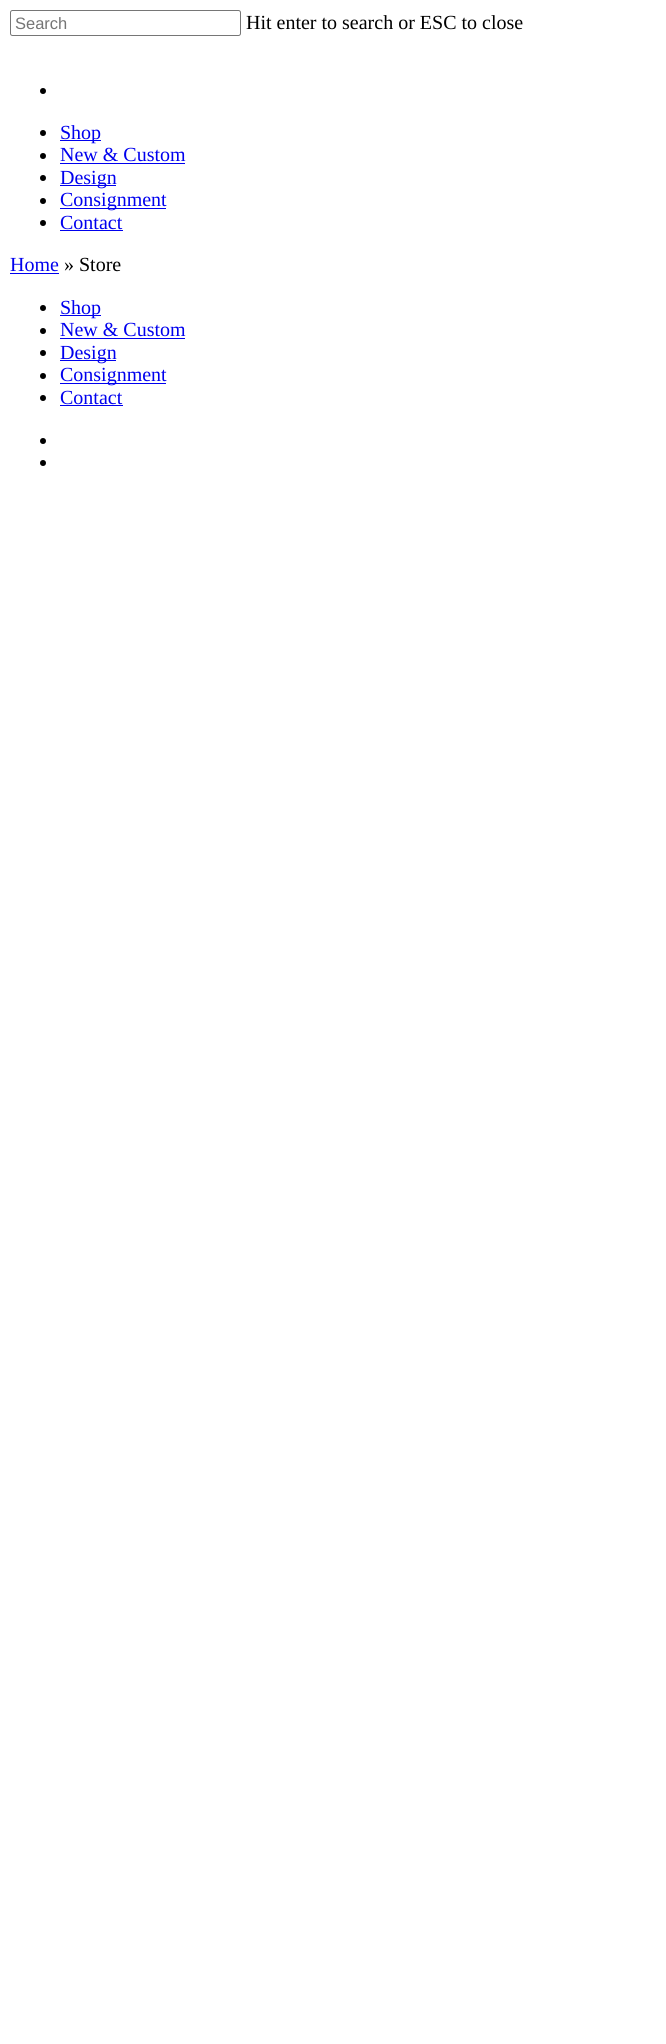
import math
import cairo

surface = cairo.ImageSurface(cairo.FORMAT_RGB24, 666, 2044)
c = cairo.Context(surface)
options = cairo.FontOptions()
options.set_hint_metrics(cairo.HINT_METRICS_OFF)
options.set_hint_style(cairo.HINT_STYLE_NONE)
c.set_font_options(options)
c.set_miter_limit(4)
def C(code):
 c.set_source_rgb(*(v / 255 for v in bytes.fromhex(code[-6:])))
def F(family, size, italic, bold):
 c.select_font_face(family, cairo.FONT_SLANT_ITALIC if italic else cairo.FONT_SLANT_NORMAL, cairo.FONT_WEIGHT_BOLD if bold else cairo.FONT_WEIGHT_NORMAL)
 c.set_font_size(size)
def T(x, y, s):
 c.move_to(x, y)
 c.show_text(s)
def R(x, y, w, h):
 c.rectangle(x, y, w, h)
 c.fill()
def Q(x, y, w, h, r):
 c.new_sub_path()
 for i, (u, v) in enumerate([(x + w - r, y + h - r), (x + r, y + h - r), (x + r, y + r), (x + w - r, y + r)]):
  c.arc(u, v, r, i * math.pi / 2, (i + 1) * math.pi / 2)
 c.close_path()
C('ffffff')
c.paint()
Q(10.5,10.5,230,25,2)
C('767676')
c.set_line_width(1)
c.stroke()
F('Liberation Sans',16.5,0,0)
C('757575')
T(15,29,'Search')
F('Liberation Serif',20,0,0)
C('000000')
T(246,29,'Hit enter to search or ESC to close')
c.new_path()
c.arc(43,91,3,0,2 * math.pi)
c.fill()
c.arc(43,133,3,0,2 * math.pi)
c.fill()
C('0000ee')
R(60,140,41,1)
T(60,139,'Shop')
C('000000')
c.new_path()
c.arc(43,156,3,0,2 * math.pi)
c.fill()
C('0000ee')
T(60,161,'New & Custom')
R(60,163,125,1)
C('000000')
c.new_path()
c.arc(43,178,3,0,2 * math.pi)
c.fill()
C('0000ee')
R(60,185,56,1)
T(60,184,'Design')
C('000000')
c.new_path()
c.arc(43,201,3,0,2 * math.pi)
c.fill()
C('0000ee')
R(60,208,106,1)
T(60,206,'Consignment')
C('000000')
c.new_path()
c.arc(43,223,3,0,2 * math.pi)
c.fill()
C('0000ee')
T(60,229,'Contact')
R(60,230,63,1)
T(10,271,'Home')
R(10,273,49,1)
C('000000')
T(64,271,'» Store')
c.new_path()
c.arc(43,308,3,0,2 * math.pi)
c.fill()
C('0000ee')
R(60,315,41,1)
T(60,314,'Shop')
C('000000')
c.new_path()
c.arc(43,331,3,0,2 * math.pi)
c.fill()
C('0000ee')
T(60,336,'New & Custom')
R(60,338,125,1)
C('000000')
c.new_path()
c.arc(43,353,3,0,2 * math.pi)
c.fill()
C('0000ee')
R(60,360,56,1)
T(60,359,'Design')
C('000000')
c.new_path()
c.arc(43,376,3,0,2 * math.pi)
c.fill()
C('0000ee')
R(60,383,106,1)
T(60,381,'Consignment')
C('000000')
c.new_path()
c.arc(43,398,3,0,2 * math.pi)
c.fill()
C('0000ee')
T(60,404,'Contact')
R(60,405,63,1)
C('000000')
c.new_path()
c.arc(43,441,3,0,2 * math.pi)
c.fill()
c.arc(43,463,3,0,2 * math.pi)
c.fill()
surface.write_to_png('o.png')
